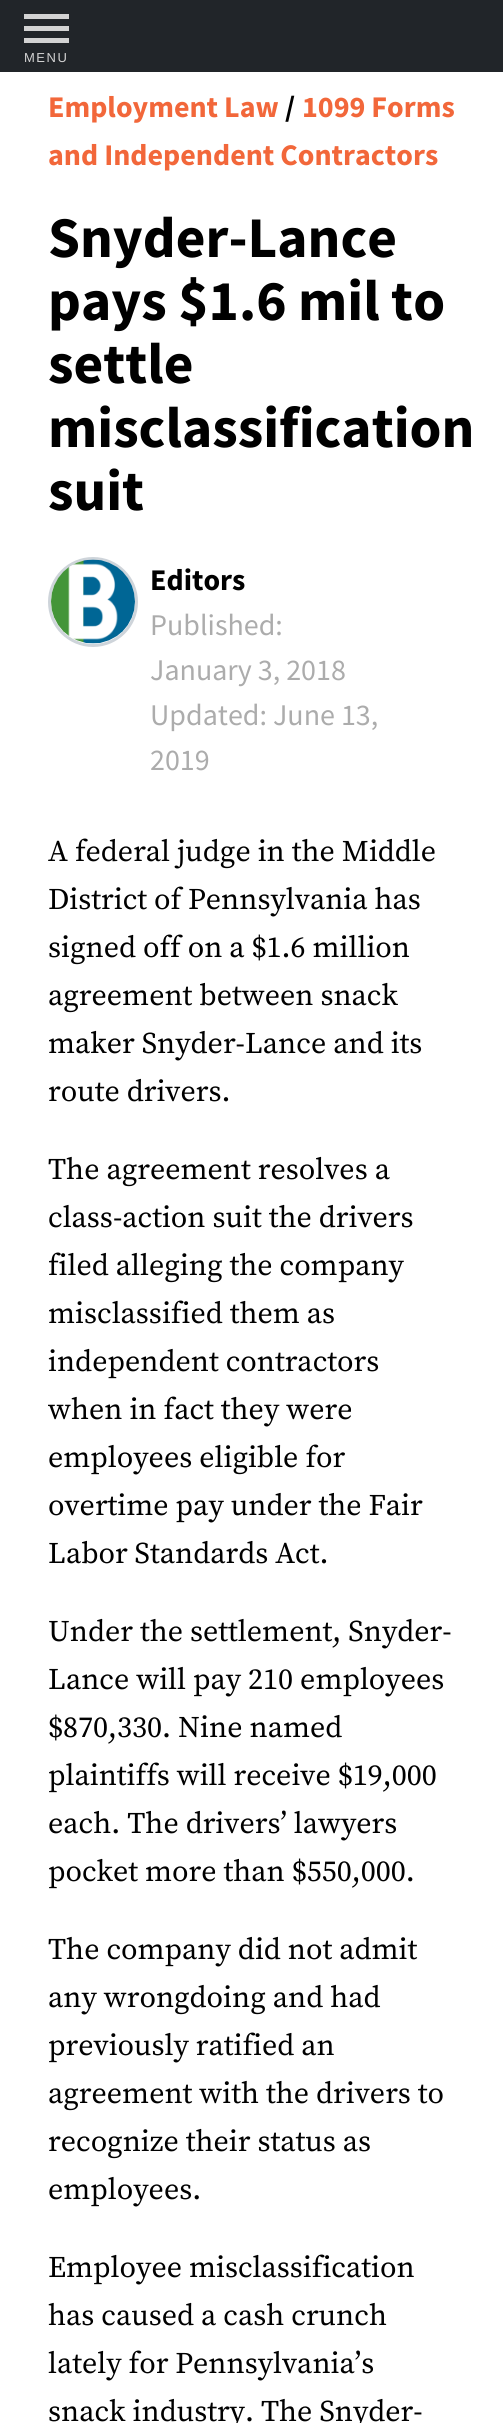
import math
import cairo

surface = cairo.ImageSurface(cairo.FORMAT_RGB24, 503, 2423)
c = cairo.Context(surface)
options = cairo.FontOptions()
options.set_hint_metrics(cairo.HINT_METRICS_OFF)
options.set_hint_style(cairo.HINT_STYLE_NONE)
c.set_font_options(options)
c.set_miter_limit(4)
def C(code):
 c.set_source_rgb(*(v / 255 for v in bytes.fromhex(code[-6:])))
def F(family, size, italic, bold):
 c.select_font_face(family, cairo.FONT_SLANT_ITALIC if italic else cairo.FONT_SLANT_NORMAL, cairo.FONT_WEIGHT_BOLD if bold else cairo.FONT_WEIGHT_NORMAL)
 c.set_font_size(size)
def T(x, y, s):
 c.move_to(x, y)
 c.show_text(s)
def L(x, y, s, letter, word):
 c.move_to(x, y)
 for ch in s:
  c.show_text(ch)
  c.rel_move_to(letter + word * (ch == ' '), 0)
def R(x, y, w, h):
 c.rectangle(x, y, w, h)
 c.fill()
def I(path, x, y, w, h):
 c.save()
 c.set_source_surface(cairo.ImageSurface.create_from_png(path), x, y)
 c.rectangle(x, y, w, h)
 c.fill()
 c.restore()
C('ffffff')
c.paint()
C('212529')
R(0,0,503,72)
C('d3d3d3')
R(24,26,45,5)
R(24,14,45,5)
R(24,38,45,5)
F('Liberation Sans',13,0,0)
L(24,62,'MENU',1.5,0)
F('Source Sans Pro',30,0,1)
C('f2673a')
T(48,117,'Employment Law')
C('000000')
T(285,117,'/')
C('f2673a')
T(302,117,'1099 Forms')
T(48,165,'and Independent Contractors')
F('Source Sans Pro',57.5,0,1)
C('000000')
T(48,257,'Snyder-Lance')
T(48,320,'pays $1.6 mil to')
T(48,383,'settle')
T(48,447,'misclassification')
T(48,510,'suit')
c.new_path()
c.arc(93,602,43.5,0,2 * math.pi)
C('ced4da')
c.set_line_width(3)
c.stroke()
I('1.png',51,559,84,85)
F('Source Sans Pro',30,0,1)
C('000000')
T(150,590,'Editors')
F('Source Sans Pro',30,0,0)
C('acacac')
T(150,635,'Published:')
T(150,680,'January 3, 2018')
T(150,725,'Updated: June 13,')
T(150,770,'2019')
F('Source Serif Pro',30,0,0)
C('000000')
T(48,861,'A federal judge in the Middle')
T(48,909,'District of Pennsylvania has')
T(48,957,'signed off on a $1.6 million')
T(48,1005,'agreement between snack')
T(48,1053,'maker Snyder-Lance and its')
T(48,1101,'route drivers.')
T(48,1179,'The agreement resolves a')
T(48,1227,'class-action suit the drivers')
T(48,1275,'filed alleging the company')
T(48,1323,'misclassified them as')
T(48,1371,'independent contractors')
T(48,1419,'when in fact they were')
T(48,1467,'employees eligible for')
T(48,1515,'overtime pay under the Fair')
T(48,1563,'Labor Standards Act.')
T(48,1641,'Under the settlement, Snyder-')
T(48,1689,'Lance will pay 210 employees')
T(48,1737,'$870,330. Nine named')
T(48,1785,'plaintiffs will receive $19,000')
T(48,1833,'each. The drivers’ lawyers')
T(48,1881,'pocket more than $550,000.')
T(48,1959,'The company did not admit')
T(48,2007,'any wrongdoing and had')
T(48,2055,'previously ratified an')
T(48,2103,'agreement with the drivers to')
T(48,2151,'recognize their status as')
T(48,2199,'employees.')
T(48,2277,'Employee misclassification')
T(48,2325,'has caused a cash crunch')
T(48,2373,'lately for Pennsylvania’s')
T(48,2421,'snack industry. The Snyder-')
surface.write_to_png('o.png')
